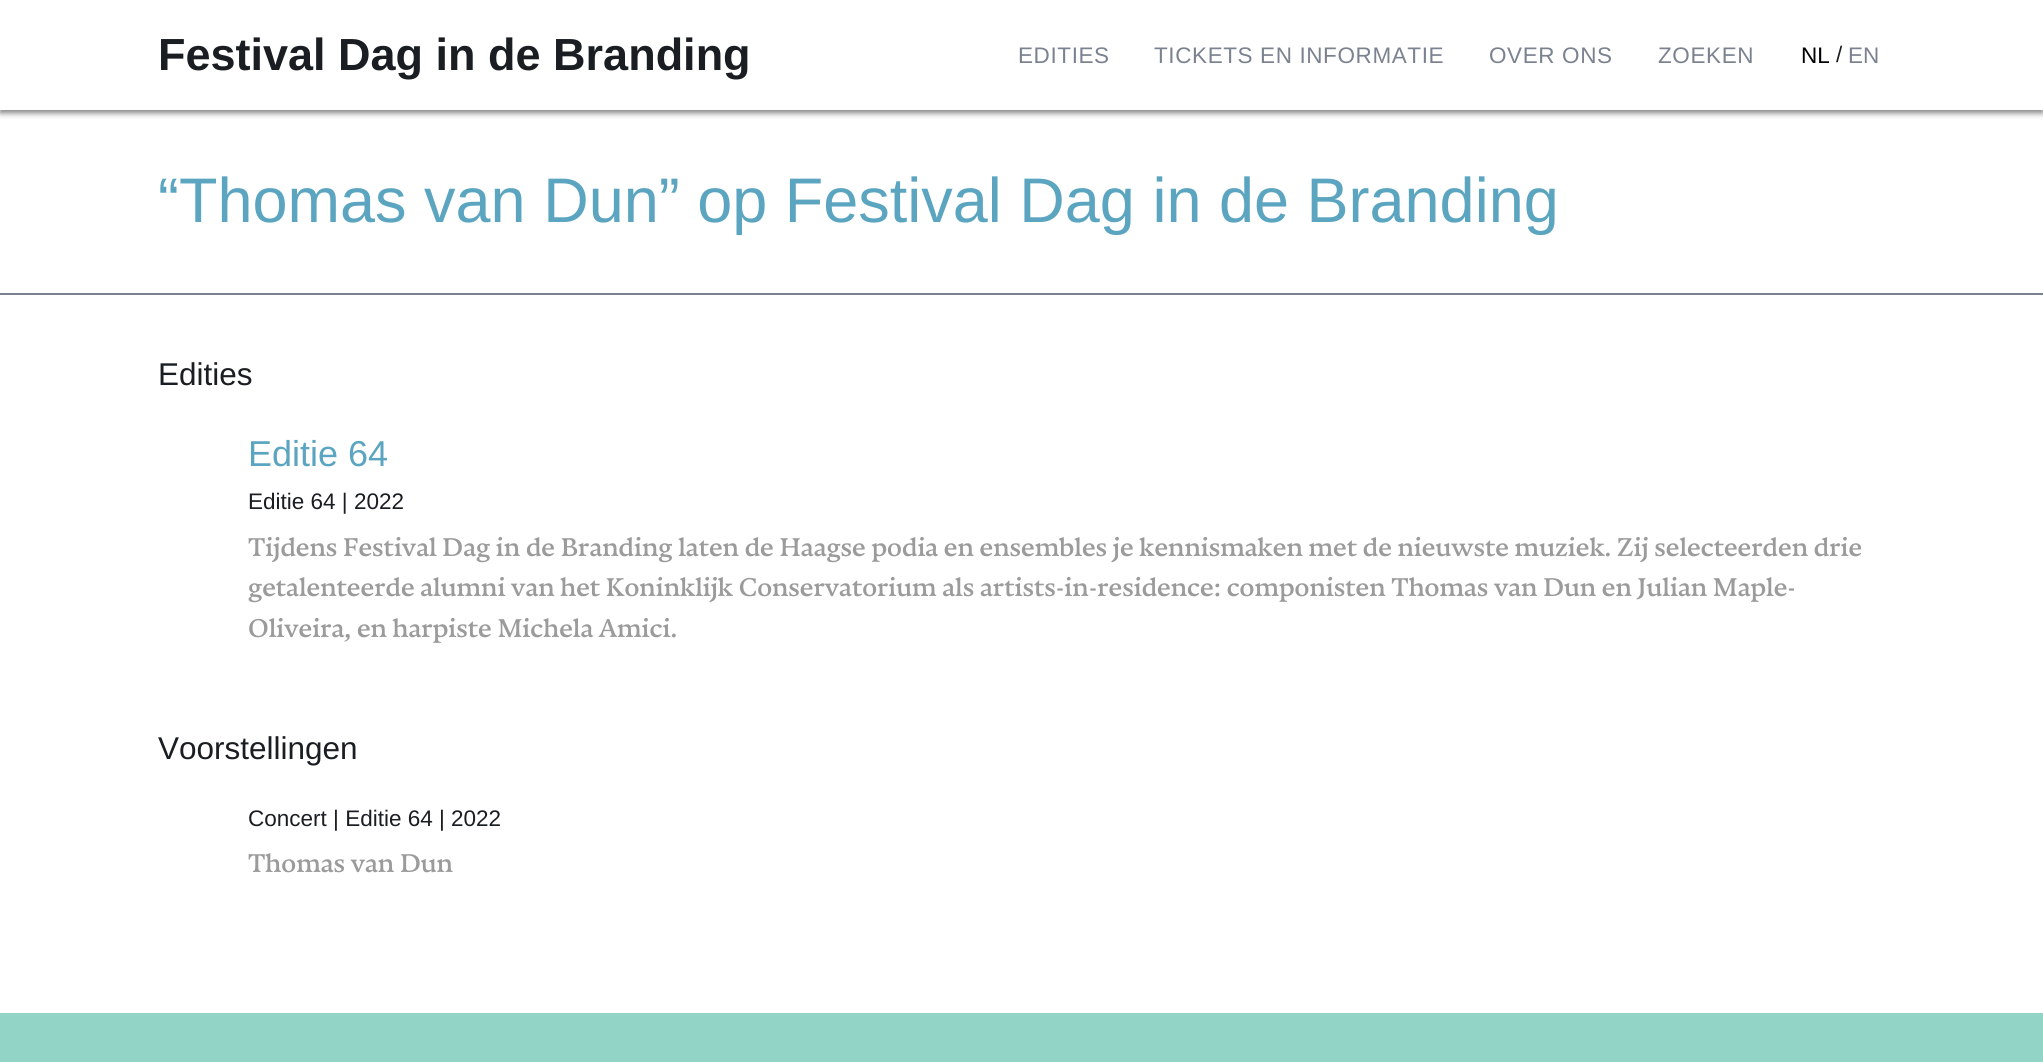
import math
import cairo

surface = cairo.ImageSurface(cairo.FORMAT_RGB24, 2043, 1062)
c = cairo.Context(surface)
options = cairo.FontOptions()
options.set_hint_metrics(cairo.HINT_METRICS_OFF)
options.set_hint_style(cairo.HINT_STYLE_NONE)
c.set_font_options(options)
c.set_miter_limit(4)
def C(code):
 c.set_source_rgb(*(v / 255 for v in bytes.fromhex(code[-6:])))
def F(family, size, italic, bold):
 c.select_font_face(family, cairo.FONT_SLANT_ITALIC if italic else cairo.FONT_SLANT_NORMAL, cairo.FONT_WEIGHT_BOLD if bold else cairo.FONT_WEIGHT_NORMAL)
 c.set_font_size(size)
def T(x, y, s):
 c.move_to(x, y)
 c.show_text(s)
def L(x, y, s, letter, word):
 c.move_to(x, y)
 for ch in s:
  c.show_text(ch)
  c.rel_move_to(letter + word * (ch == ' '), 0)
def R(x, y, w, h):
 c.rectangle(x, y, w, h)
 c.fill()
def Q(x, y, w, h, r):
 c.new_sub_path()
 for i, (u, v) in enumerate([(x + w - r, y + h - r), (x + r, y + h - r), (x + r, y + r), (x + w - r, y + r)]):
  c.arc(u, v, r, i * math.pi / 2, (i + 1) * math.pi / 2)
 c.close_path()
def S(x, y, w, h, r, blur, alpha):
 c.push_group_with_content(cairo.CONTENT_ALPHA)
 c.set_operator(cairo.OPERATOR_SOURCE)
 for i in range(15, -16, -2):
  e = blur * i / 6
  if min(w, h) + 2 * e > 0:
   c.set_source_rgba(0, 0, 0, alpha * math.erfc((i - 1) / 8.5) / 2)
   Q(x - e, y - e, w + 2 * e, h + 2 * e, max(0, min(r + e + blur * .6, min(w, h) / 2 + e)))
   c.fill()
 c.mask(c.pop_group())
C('ffffff')
c.paint()
C('000000')
S(0,3,2043,110,0,3,.5)
C('ffffff')
R(0,0,2043,110)
F('Liberation Sans',45,0,1)
C('1a1e22')
T(158,70,'Festival Dag in de Branding')
F('Liberation Sans',22.5,0,0)
C('7b828f')
L(1018,63,'EDITIES',.6,0)
L(1154,63,'TICKETS EN INFORMATIE',.6,0)
L(1489,63,'OVER ONS',.6,0)
L(1658,63,'ZOEKEN',.6,0)
C('000000')
T(1801,63,'NL')
C('1a1e22')
T(1836,62,'/')
C('7b828f')
T(1848,63,'EN')
R(0,293,2043,2)
F('Liberation Sans',63,0,0)
C('5ba5c0')
T(158,222,'“Thomas van Dun” op Festival Dag in de Branding')
F('Liberation Sans',31.5,0,0)
C('1a1e22')
T(158,385,'Edities')
F('Liberation Sans',36,0,0)
C('5ba5c0')
T(248,466,'Editie 64')
F('Liberation Sans',22.5,0,0)
C('1a1e22')
T(248,509,'Editie 64 | 2022')
F('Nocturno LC',25.5,0,0)
C('9b9b9b')
T(248,556,'Tijdens Festival Dag in de Branding laten de Haagse podia en ensembles je kennismaken met de nieuwste muziek. Zij selecteerden drie')
T(248,596,'getalenteerde alumni van het Koninklijk Conservatorium als artists-in-residence: componisten Thomas van Dun en Julian Maple-')
T(248,637,'Oliveira, en harpiste Michela Amici.')
F('Liberation Sans',31.5,0,0)
C('1a1e22')
T(158,759,'Voorstellingen')
F('Liberation Sans',22.5,0,0)
T(248,826,'Concert | Editie 64 | 2022')
F('Nocturno LC',25.5,0,0)
C('9b9b9b')
T(248,872,'Thomas van Dun')
C('92d5c6')
R(0,1013,2043,49)
surface.write_to_png('o.png')
